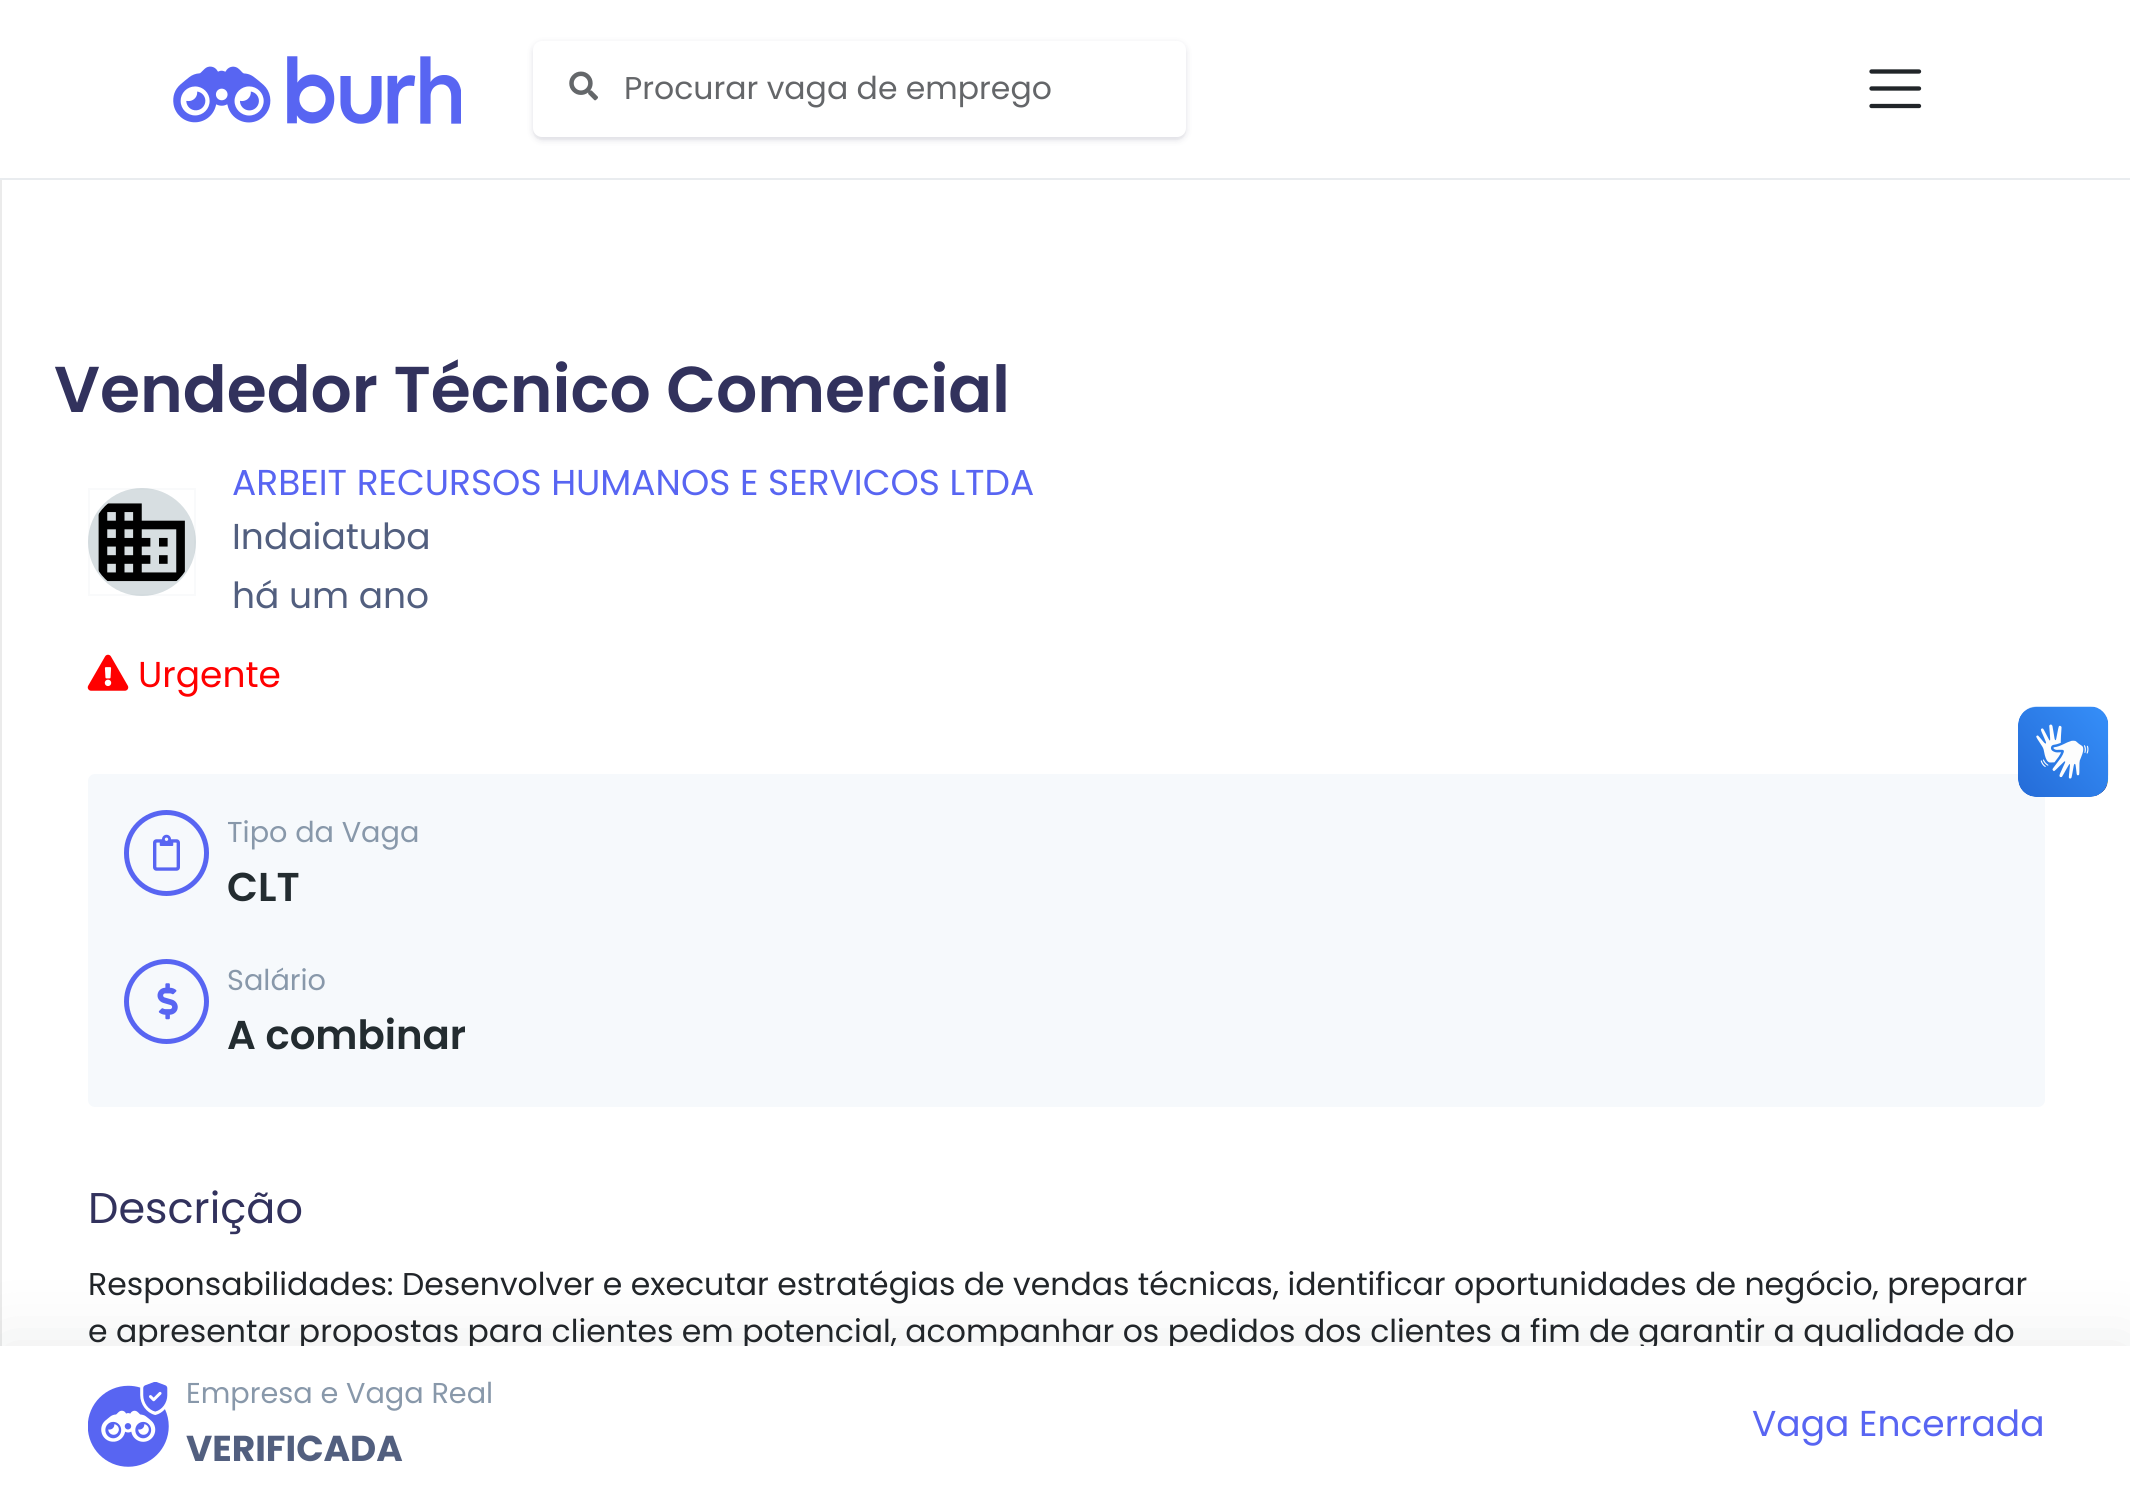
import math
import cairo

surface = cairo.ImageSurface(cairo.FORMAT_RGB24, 2130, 1501)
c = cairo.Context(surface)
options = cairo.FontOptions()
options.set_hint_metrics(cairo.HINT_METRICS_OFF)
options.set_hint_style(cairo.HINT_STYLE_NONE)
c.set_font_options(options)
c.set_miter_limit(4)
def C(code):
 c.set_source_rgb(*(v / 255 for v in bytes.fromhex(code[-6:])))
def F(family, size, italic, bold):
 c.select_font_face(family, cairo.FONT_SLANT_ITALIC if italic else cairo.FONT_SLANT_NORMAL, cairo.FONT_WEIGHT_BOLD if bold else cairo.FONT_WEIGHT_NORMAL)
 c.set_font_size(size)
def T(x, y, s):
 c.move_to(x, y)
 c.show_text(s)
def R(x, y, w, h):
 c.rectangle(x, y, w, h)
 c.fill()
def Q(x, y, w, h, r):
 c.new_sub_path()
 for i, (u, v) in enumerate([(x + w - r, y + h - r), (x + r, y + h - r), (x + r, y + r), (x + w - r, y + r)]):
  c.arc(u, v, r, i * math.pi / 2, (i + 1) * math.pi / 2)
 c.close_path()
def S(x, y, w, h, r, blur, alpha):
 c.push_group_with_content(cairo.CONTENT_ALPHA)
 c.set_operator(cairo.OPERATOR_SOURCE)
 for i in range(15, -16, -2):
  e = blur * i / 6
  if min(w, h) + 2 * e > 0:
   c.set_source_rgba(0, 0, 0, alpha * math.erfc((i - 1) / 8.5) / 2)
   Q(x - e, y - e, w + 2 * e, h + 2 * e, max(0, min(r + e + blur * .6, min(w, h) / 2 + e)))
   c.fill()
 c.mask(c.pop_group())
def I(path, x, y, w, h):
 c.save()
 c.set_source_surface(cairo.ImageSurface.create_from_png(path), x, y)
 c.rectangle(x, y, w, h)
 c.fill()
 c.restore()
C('ffffff')
c.paint()
C('e9ecef')
R(0,178,2130,2)
I('1.png',173,56,288,68)
C('fafafa')
c.new_path()
c.move_to(533,50)
c.line_to(533,131)
c.curve_to(533,136,537,140,542,140)
c.line_to(1177,140)
c.curve_to(1182,140,1186,136,1186,131)
c.line_to(1186,50)
c.line_to(1186,128)
c.curve_to(1186,133,1182,137,1177,137)
c.line_to(542,137)
c.curve_to(537,137,533,133,533,128)
c.close_path()
c.fill()
C('32325d')
S(533,43,653,97,9,3.5,.15)
C('ffffff')
Q(533,41,653,96,9)
c.fill()
I('2.png',569,71,29,30)
F('Poppins',31.5,0,0)
C('646669')
T(624,99,'Procurar vaga de emprego')
c.new_path()
c.move_to(1871.5,71.5)
c.line_to(1919,71.5)
c.move_to(1871.5,88.5)
c.line_to(1919,88.5)
c.move_to(1871.5,106)
c.line_to(1919,106)
C('212529')
c.set_line_width(4.3)
c.set_line_cap(cairo.LINE_CAP_ROUND)
c.stroke()
C('ebebeb')
R(0,180,2,1166)
F('Poppins SemiBold',64.75,0,0)
C('32325d')
T(54,412,'Vendedor Técnico Comercial')
C('d7dee1')
c.new_path()
c.arc(142,542,54,0,2 * math.pi)
c.fill()
c.rectangle(89,489,106,106)
c.set_source_rgba(0.494,0.588,0.631,0.05)
c.set_line_width(2)
c.set_line_cap(cairo.LINE_CAP_BUTT)
c.stroke()
I('3.png',98,503,87,79)
F('Poppins',36,0,0)
C('5865f2')
T(232,495,'ARBEIT RECURSOS HUMANOS E SERVICOS LTDA')
C('525f7f')
T(232,549,'Indaiatuba')
T(232,608,'há um ano')
I('4.png',87,654,42,37)
C('ff0000')
T(138,687,'Urgente')
C('f6f9fc')
Q(88,774,1957,333,7)
c.fill()
Q(126.5,812.5,80,81,40)
C('5865f2')
c.set_line_width(5)
c.stroke()
I('5.png',153,834,27,37)
F('Poppins',28.75,0,0)
C('8898aa')
T(227,842,'Tipo da Vaga')
F('Poppins SemiBold',40.25,0,0)
C('232c30')
T(227,901,'CLT')
c.new_path()
c.arc(166.5,1001.5,40,0,2 * math.pi)
C('5865f2')
c.stroke()
I('6.png',157,983,21,37)
F('Poppins',28.75,0,0)
C('8898aa')
T(227,990,'Salário')
F('Poppins SemiBold',40.25,0,0)
C('232c30')
T(227,1049,'A combinar')
F('Poppins',43,0,0)
C('32325d')
T(88,1223,'Descrição')
F('Poppins',31.5,0,0)
C('212529')
T(88,1295,'Responsabilidades: Desenvolver e executar estratégias de vendas técnicas, identificar oportunidades de negócio, preparar')
T(88,1342,'e apresentar propostas para clientes em potencial, acompanhar os pedidos dos clientes a fim de garantir a qualidade do')
C('232c30')
S(0,1346,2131,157,0,36,.1)
C('ffffff')
R(0,1346,2130,155)
I('7.png',88,1382,81,85)
F('Poppins',28.75,0,0)
C('8898aa')
T(186,1403,'Empresa e Vaga Real')
F('Poppins',36,0,1)
C('525f7f')
T(186,1461,'VERIFICADA')
F('Poppins',36,0,0)
C('5865f2')
T(1752,1436,'Vaga Encerrada')
I('8.png',2018,706,91,91)
I('9.png',2018,707,90,90)
surface.write_to_png('o.png')
